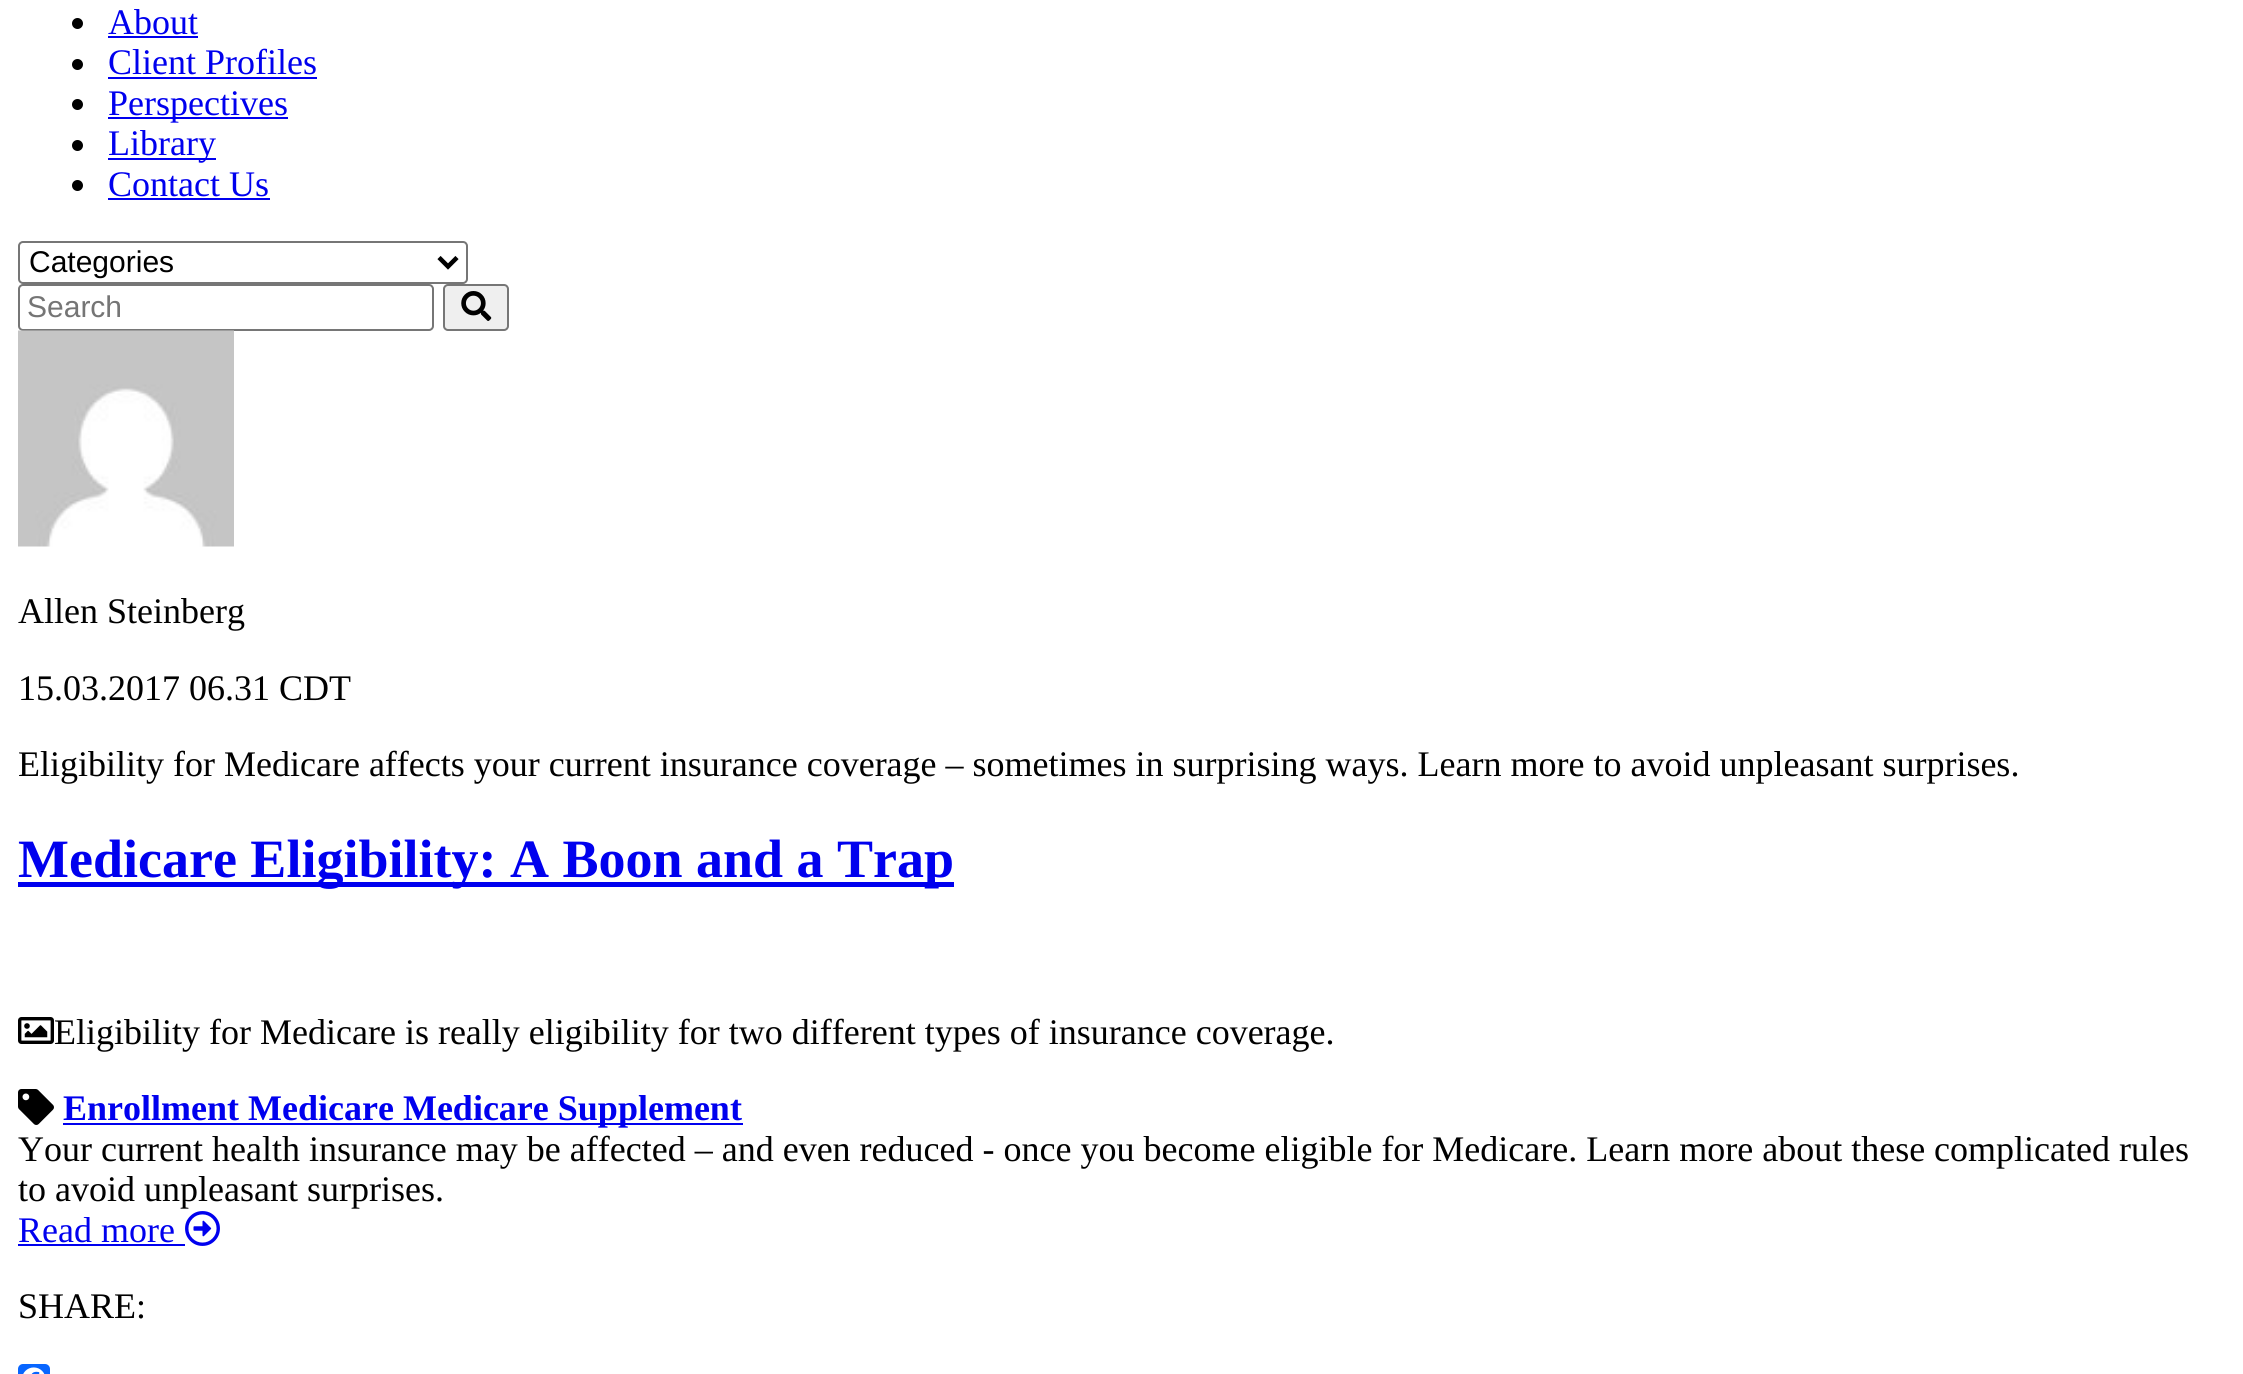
import math
import cairo

surface = cairo.ImageSurface(cairo.FORMAT_RGB24, 2243, 1374)
c = cairo.Context(surface)
options = cairo.FontOptions()
options.set_hint_metrics(cairo.HINT_METRICS_OFF)
options.set_hint_style(cairo.HINT_STYLE_NONE)
c.set_font_options(options)
c.set_miter_limit(4)
def C(code):
 c.set_source_rgb(*(v / 255 for v in bytes.fromhex(code[-6:])))
def F(family, size, italic, bold):
 c.select_font_face(family, cairo.FONT_SLANT_ITALIC if italic else cairo.FONT_SLANT_NORMAL, cairo.FONT_WEIGHT_BOLD if bold else cairo.FONT_WEIGHT_NORMAL)
 c.set_font_size(size)
def T(x, y, s):
 c.move_to(x, y)
 c.show_text(s)
def R(x, y, w, h):
 c.rectangle(x, y, w, h)
 c.fill()
def Q(x, y, w, h, r):
 c.new_sub_path()
 for i, (u, v) in enumerate([(x + w - r, y + h - r), (x + r, y + h - r), (x + r, y + r), (x + w - r, y + r)]):
  c.arc(u, v, r, i * math.pi / 2, (i + 1) * math.pi / 2)
 c.close_path()
def I(path, x, y, w, h):
 c.save()
 c.set_source_surface(cairo.ImageSurface.create_from_png(path), x, y)
 c.rectangle(x, y, w, h)
 c.fill()
 c.restore()
C('ffffff')
c.paint()
C('000000')
c.arc(77.5,23.5,5.5,0,2 * math.pi)
c.fill()
F('Liberation Serif',36,0,0)
C('0000ee')
T(108,34,'About')
R(108,36,90,2)
C('000000')
c.new_path()
c.arc(77.5,64.5,5.5,0,2 * math.pi)
c.fill()
C('0000ee')
T(108,74,'Client Profiles')
R(108,77,209,2)
C('000000')
c.new_path()
c.arc(77.5,104.5,5.5,0,2 * math.pi)
c.fill()
C('0000ee')
R(108,117,180,2)
T(108,115,'Perspectives')
C('000000')
c.new_path()
c.arc(77.5,145.5,5.5,0,2 * math.pi)
c.fill()
C('0000ee')
R(108,158,108,2)
T(108,155,'Library')
C('000000')
c.new_path()
c.arc(77.5,185.5,5.5,0,2 * math.pi)
c.fill()
C('0000ee')
T(108,196,'Contact Us')
R(108,198,162,2)
Q(19,242,448,41,4)
C('767676')
c.stroke()
c.new_path()
c.move_to(439,257.5)
c.line_to(448,266.5)
c.line_to(457,257.5)
C('000000')
c.set_line_width(4.5)
c.stroke()
F('Liberation Sans',30,0,0)
T(29,272,'Categories')
Q(19,285,414,45,4)
C('767676')
c.set_line_width(2)
c.stroke()
C('757575')
T(27,317,'Search')
C('efefef')
Q(444,285,64,45,4)
c.fill_preserve()
C('767676')
c.stroke()
I('1.png',461,291,31,30)
I('2.png',18,330,216,217)
F('Liberation Serif',36,0,0)
C('000000')
T(18,623,'Allen Steinberg')
T(18,700,'15.03.2017 06.31 CDT')
T(18,776,'Eligibility for Medicare affects your current insurance coverage – sometimes in surprising ways. Learn more to avoid unpleasant surprises.')
C('0000ee')
R(18,882,936,5)
F('Liberation Serif',54,0,1)
T(18,877,'Medicare Eligibility: A Boon and a Trap')
I('3.png',18,1017,36,27)
F('Liberation Serif',36,0,0)
C('000000')
T(54,1044,'Eligibility for Medicare is really eligibility for two different types of insurance coverage.')
I('4.png',18,1089,36,36)
C('0000ee')
R(63,1123,680,2)
F('Liberation Serif',36,0,1)
T(63,1120,'Enrollment Medicare Medicare Supplement')
F('Liberation Serif',36,0,0)
C('000000')
T(18,1161,'Your current health insurance may be affected – and even reduced - once you become eligible for Medicare. Learn more about these complicated rules')
T(18,1201,'to avoid unpleasant surprises.')
C('0000ee')
T(18,1242,'Read more')
R(18,1244,167,2)
I('5.png',185,1211,35,35)
C('000000')
T(18,1318,'SHARE:')
C('0866ff')
Q(18,1364,32,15,5)
c.fill()
I('6.png',23,1367,22,7)
surface.write_to_png('o.png')
